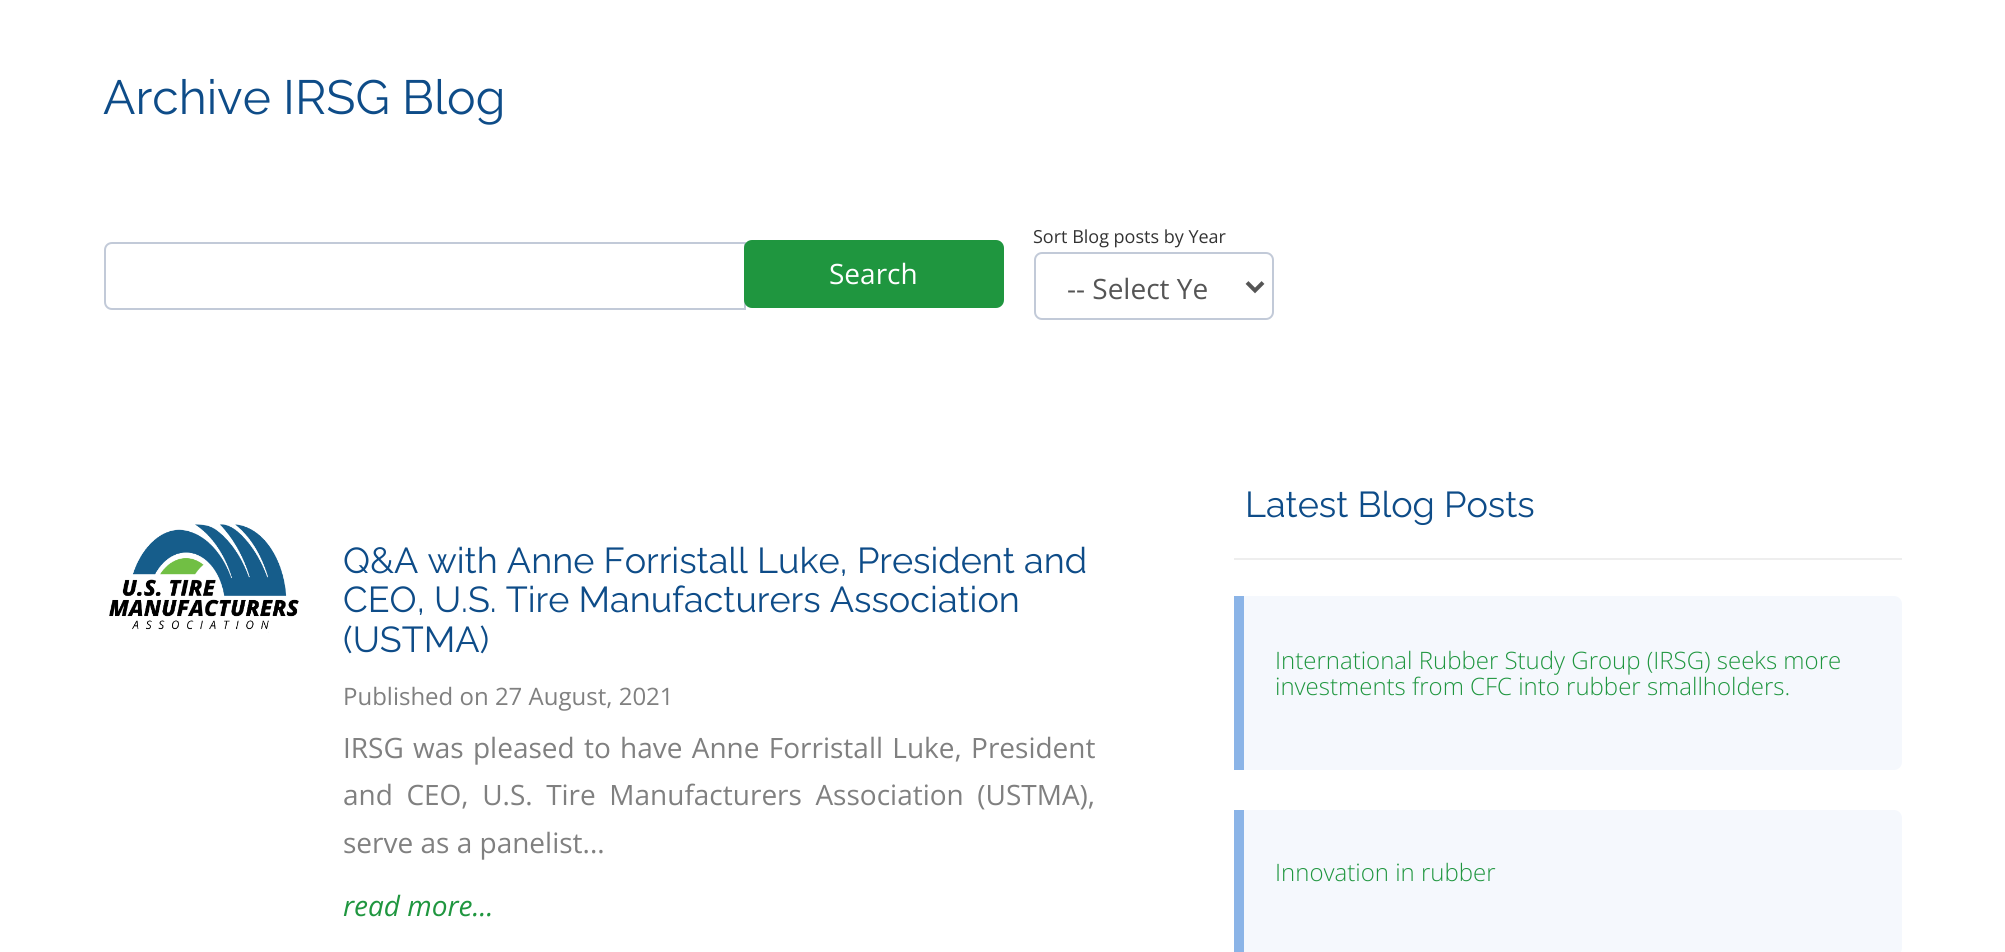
import math
import cairo

surface = cairo.ImageSurface(cairo.FORMAT_RGB24, 2005, 952)
c = cairo.Context(surface)
options = cairo.FontOptions()
options.set_hint_metrics(cairo.HINT_METRICS_OFF)
options.set_hint_style(cairo.HINT_STYLE_NONE)
c.set_font_options(options)
c.set_miter_limit(4)
def C(code):
 c.set_source_rgb(*(v / 255 for v in bytes.fromhex(code[-6:])))
def F(family, size, italic, bold):
 c.select_font_face(family, cairo.FONT_SLANT_ITALIC if italic else cairo.FONT_SLANT_NORMAL, cairo.FONT_WEIGHT_BOLD if bold else cairo.FONT_WEIGHT_NORMAL)
 c.set_font_size(size)
def T(x, y, s):
 c.move_to(x, y)
 c.show_text(s)
def L(x, y, s, letter, word):
 c.move_to(x, y)
 for ch in s:
  c.show_text(ch)
  c.rel_move_to(letter + word * (ch == ' '), 0)
def R(x, y, w, h):
 c.rectangle(x, y, w, h)
 c.fill()
def Q(x, y, w, h, r):
 c.new_sub_path()
 for i, (u, v) in enumerate([(x + w - r, y + h - r), (x + r, y + h - r), (x + r, y + r), (x + w - r, y + r)]):
  c.arc(u, v, r, i * math.pi / 2, (i + 1) * math.pi / 2)
 c.close_path()
def I(path, x, y, w, h):
 c.save()
 c.set_source_surface(cairo.ImageSurface.create_from_png(path), x, y)
 c.rectangle(x, y, w, h)
 c.fill()
 c.restore()
C('ffffff')
c.paint()
F('Raleway Thin',48,0,0)
C('0e4c88')
T(103,114,'Archive IRSG Blog')
c.new_path()
c.move_to(112,243)
c.line_to(745,243)
c.line_to(745,309)
c.line_to(112,309)
c.curve_to(108,309,105,306,105,302)
c.line_to(105,250)
c.curve_to(105,246,108,243,112,243)
c.close_path()
C('c2cad8')
c.stroke()
C('1f963f')
Q(745,241,258,66,7)
c.fill_preserve()
c.stroke()
F('Open Sans',28,0,0)
C('ffffff')
T(829,284,'Search')
F('Open Sans',18,0,0)
C('333333')
T(1033,243,'Sort Blog posts by Year')
Q(1035,253,238,66,7)
C('c2cad8')
c.stroke()
c.new_path()
c.move_to(1247,282.5)
c.line_to(1255,290.5)
c.line_to(1263,282.5)
C('555555')
c.set_line_width(4)
c.stroke()
F('Open Sans',28,0,0)
T(1067,299,'-- Select Ye')
I('1.png',109,524,190,109)
F('Raleway Thin',36,0,0)
C('0e4c88')
T(343,573,'Q&A with Anne Forristall Luke, President and')
T(343,612,'CEO, U.S. Tire Manufacturers Association')
T(343,652,'(USTMA)')
F('Open Sans',24,0,0)
C('808080')
T(343,705,'Published on 27 August, 2021')
F('Open Sans',28,0,0)
L(343,758,'IRSG was pleased to have Anne Forristall Luke, President',0,2)
L(343,805,'and CEO, U.S. Tire Manufacturers Association (USTMA),',0,6.25)
T(343,853,'serve as a panelist...')
F('Open Sans',28,1,0)
C('1f963f')
T(343,916,'read more...')
C('eeeeee')
R(1234,558,668,2)
F('Raleway Thin',36,0,0)
C('0e4c88')
T(1245,517,'Latest Blog Posts')
C('f5f8fd')
c.new_path()
c.move_to(1234,596)
c.line_to(1894,596)
c.curve_to(1898.5,596,1902,599.5,1902,604)
c.line_to(1902,762)
c.curve_to(1902,766.5,1898.5,770,1894,770)
c.line_to(1234,770)
c.close_path()
c.fill()
C('8bb4e7')
R(1234,596,10,174)
F('Open Sans Light',24,0,0)
C('1f963f')
T(1275,669,'International Rubber Study Group (IRSG) seeks more')
T(1275,695,'investments from CFC into rubber smallholders.')
C('f5f8fd')
c.new_path()
c.move_to(1234,810)
c.line_to(1894,810)
c.curve_to(1898.5,810,1902,813.5,1902,818)
c.line_to(1902,948)
c.curve_to(1902,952.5,1898.5,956,1894,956)
c.line_to(1234,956)
c.close_path()
c.fill()
C('8bb4e7')
R(1234,810,10,142)
C('1f963f')
T(1275,881,'Innovation in rubber')
surface.write_to_png('o.png')
